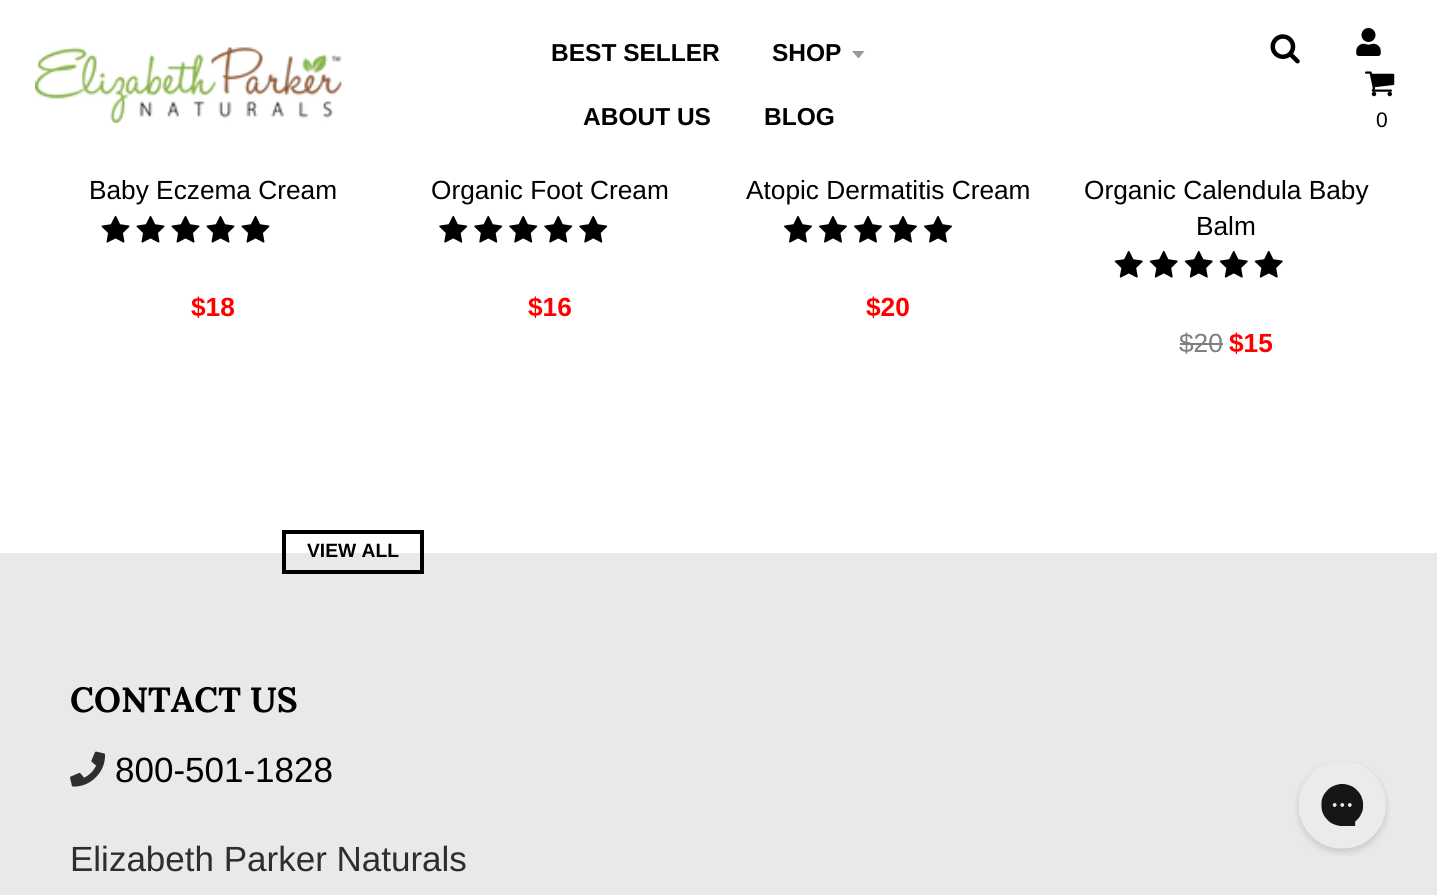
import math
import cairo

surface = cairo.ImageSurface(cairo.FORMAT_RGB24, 1437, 895)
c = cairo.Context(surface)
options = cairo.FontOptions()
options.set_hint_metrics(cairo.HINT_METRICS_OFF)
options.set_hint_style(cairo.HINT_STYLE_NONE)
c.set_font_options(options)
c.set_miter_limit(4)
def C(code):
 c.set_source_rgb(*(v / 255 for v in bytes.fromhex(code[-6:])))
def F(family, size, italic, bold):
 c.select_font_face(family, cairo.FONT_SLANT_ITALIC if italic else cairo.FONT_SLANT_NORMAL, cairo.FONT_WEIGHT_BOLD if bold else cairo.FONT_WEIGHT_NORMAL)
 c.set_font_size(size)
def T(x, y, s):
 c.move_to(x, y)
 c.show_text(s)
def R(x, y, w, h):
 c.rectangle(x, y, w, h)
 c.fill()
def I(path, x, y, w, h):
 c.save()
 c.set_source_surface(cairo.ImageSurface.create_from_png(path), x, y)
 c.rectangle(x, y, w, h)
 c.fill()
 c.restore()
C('ffffff')
c.paint()
I('1.png',35,47,307,76)
F('Liberation Sans',24.5,0,1)
C('000000')
T(551,61,'BEST SELLER')
T(772,61,'SHOP')
C('999999')
c.new_path()
c.move_to(852,51)
c.line_to(858.5,58.5)
c.line_to(864.5,51)
c.close_path()
c.fill()
C('000000')
T(583,125,'ABOUT US')
T(764,125,'BLOG')
I('2.png',1270,34,30,30)
I('3.png',1356,28,25,28)
I('4.png',1365,71,30,26)
F('Liberation Sans',21,0,0)
T(1376,127,'0')
F('Liberation Sans',26.25,0,0)
T(89,199,'Baby Eczema Cream')
I('5.png',101,215,29,28)
I('5.png',136,215,29,28)
I('5.png',171,215,29,28)
I('5.png',206,215,29,28)
I('5.png',241,215,29,28)
F('Liberation Sans',26.25,0,1)
C('ff0000')
T(191,316,'$18')
F('Liberation Sans',26.25,0,0)
C('000000')
T(431,199,'Organic Foot Cream')
I('6.png',439,215,29,28)
I('6.png',474,215,29,28)
I('6.png',509,215,29,28)
I('6.png',544,215,29,28)
I('6.png',579,215,29,28)
F('Liberation Sans',26.25,0,1)
C('ff0000')
T(528,316,'$16')
F('Liberation Sans',26.25,0,0)
C('000000')
T(746,199,'Atopic Dermatitis Cream')
I('7.png',784,216,28,27)
I('7.png',819,216,28,27)
I('7.png',854,216,28,27)
I('7.png',889,216,28,27)
I('7.png',924,216,28,27)
F('Liberation Sans',26.25,0,1)
C('ff0000')
T(866,316,'$20')
F('Liberation Sans',26.25,0,0)
C('000000')
T(1084,199,'Organic Calendula Baby')
T(1196,235,'Balm')
I('8.png',1114,250,29,28)
I('8.png',1149,250,29,28)
I('8.png',1184,250,29,28)
I('8.png',1219,250,29,28)
I('8.png',1254,250,29,28)
C('7f7f7f')
T(1179,352,'$20')
R(1180,343,43,2)
F('Liberation Sans',26.25,0,1)
C('ff0000')
T(1229,352,'$15')
C('e9e9e9')
R(0,553,1437,342)
c.rectangle(284,532,138,40)
C('000000')
c.set_line_width(4)
c.stroke()
F('Liberation Sans',19.25,0,1)
T(307,557,'VIEW ALL')
F('Lora',35,0,1)
T(70,712,'CONTACT US')
I('9.png',70,751,36,36)
F('Liberation Sans',35,0,0)
T(115,782,'800-501-1828')
C('2e2e2e')
T(70,871,'Elizabeth Parker Naturals')
I('10.png',1295,761,95,95)
surface.write_to_png('o.png')
